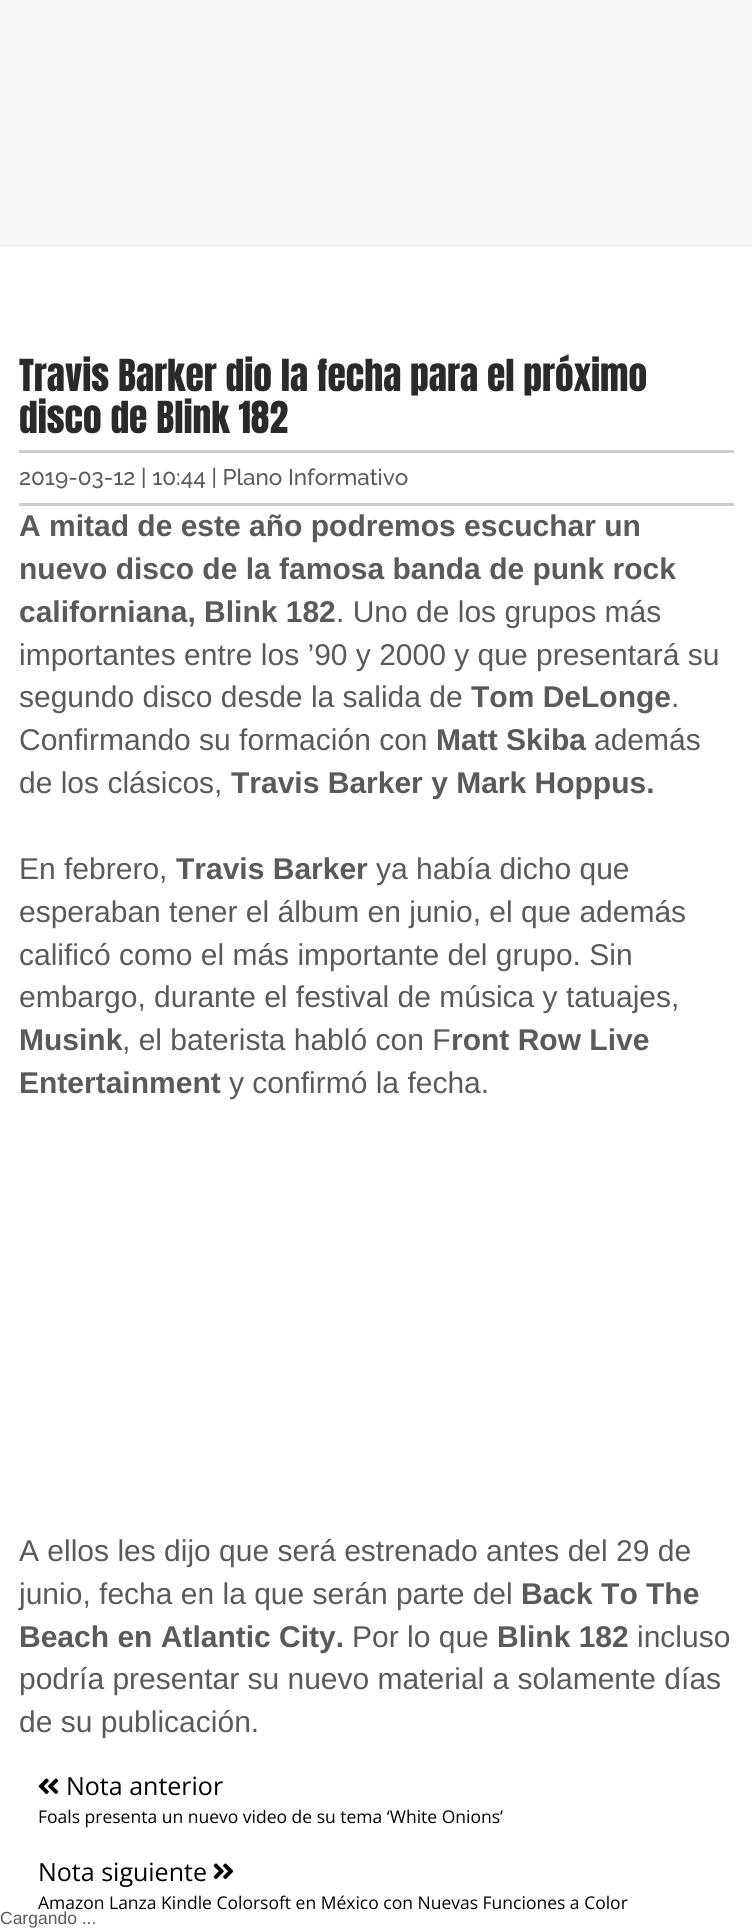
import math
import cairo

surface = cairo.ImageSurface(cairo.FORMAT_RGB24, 752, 1929)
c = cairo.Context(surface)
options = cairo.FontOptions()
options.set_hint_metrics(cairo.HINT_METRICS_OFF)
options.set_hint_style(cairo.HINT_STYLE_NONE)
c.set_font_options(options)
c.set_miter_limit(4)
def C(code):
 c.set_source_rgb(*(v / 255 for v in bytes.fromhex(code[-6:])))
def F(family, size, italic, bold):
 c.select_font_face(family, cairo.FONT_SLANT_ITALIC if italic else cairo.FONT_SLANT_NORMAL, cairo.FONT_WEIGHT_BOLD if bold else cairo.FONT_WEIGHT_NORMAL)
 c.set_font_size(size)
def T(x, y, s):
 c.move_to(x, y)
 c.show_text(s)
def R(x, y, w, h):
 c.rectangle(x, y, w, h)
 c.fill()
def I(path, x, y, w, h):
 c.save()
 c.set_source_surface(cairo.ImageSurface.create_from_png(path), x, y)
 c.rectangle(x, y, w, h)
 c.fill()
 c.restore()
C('ffffff')
c.paint()
C('f8f8f8')
R(0,0,752,245)
C('e7e7e7')
R(0,245,752,1)
F('Anton',37.5,0,0)
C('2a2a2a')
T(19,391,'Travis Barker dio la fecha para el próximo')
T(19,433,'disco de Blink 182')
C('cccccc')
R(19,450,715,3)
R(19,503,715,3)
F('Raleway Medium',22.5,0,0)
C('5a5a5a')
T(19,485,'2019-03-12 | 10:44 | Plano Informativo')
F('Liberation Sans',30,0,1)
T(19,536,'A mitad de este año podremos escuchar un')
T(19,579,'nuevo disco de la famosa banda de punk rock')
T(19,622,'californiana, Blink 182')
F('Liberation Sans',30,0,0)
T(336,622,'. Uno de los grupos más')
T(19,665,'importantes entre los ’90 y 2000 y que presentará su')
T(19,707,'segundo disco desde la salida de')
F('Liberation Sans',30,0,1)
T(471,707,'Tom DeLonge')
F('Liberation Sans',30,0,0)
T(671,707,'.')
T(19,750,'Confirmando su formación con')
F('Liberation Sans',30,0,1)
T(436,750,'Matt Skiba')
F('Liberation Sans',30,0,0)
T(594,750,'además')
T(19,793,'de los clásicos,')
F('Liberation Sans',30,0,1)
T(231,793,'Travis Barker y Mark Hoppus.')
F('Liberation Sans',30,0,0)
T(19,879,'En febrero,')
F('Liberation Sans',30,0,1)
T(176,879,'Travis Barker')
F('Liberation Sans',30,0,0)
T(376,879,'ya había dicho que')
T(19,922,'esperaban tener el álbum en junio, el que además')
T(19,965,'calificó como el más importante del grupo. Sin')
T(19,1007,'embargo, durante el festival de música y tatuajes,')
F('Liberation Sans',30,0,1)
T(19,1050,'Musink')
F('Liberation Sans',30,0,0)
T(122,1050,', el baterista habló con F')
F('Liberation Sans',30,0,1)
T(451,1050,'ront Row Live')
T(19,1093,'Entertainment')
F('Liberation Sans',30,0,0)
T(229,1093,'y confirmó la fecha.')
T(19,1561,'A ellos les dijo que será estrenado antes del 29 de')
T(19,1604,'junio, fecha en la que serán parte del')
F('Liberation Sans',30,0,1)
T(521,1604,'Back To The')
T(19,1647,'Beach en Atlantic City.')
F('Liberation Sans',30,0,0)
T(352,1647,'Por lo que')
F('Liberation Sans',30,0,1)
T(497,1647,'Blink 182')
F('Liberation Sans',30,0,0)
T(637,1647,'incluso')
T(19,1689,'podría presentar su nuevo material a solamente días')
T(19,1732,'de su publicación.')
I('1.png',38,1778,21,16)
F('Open Sans',25,0,0)
C('000000')
T(66,1795,'Nota anterior')
F('Open Sans',17.5,0,0)
T(38,1823,'Foals presenta un nuevo video de su tema ‘White Onions’')
F('Open Sans',25,0,0)
T(38,1881,'Nota siguiente')
I('2.png',213,1863,21,16)
F('Open Sans',17.5,0,0)
T(38,1909,'Amazon Lanza Kindle Colorsoft en México con Nuevas Funciones a Color')
F('Liberation Sans',17.5,0,0)
C('5a5a5a')
T(0,1924,'Cargando ...')
surface.write_to_png('o.png')
